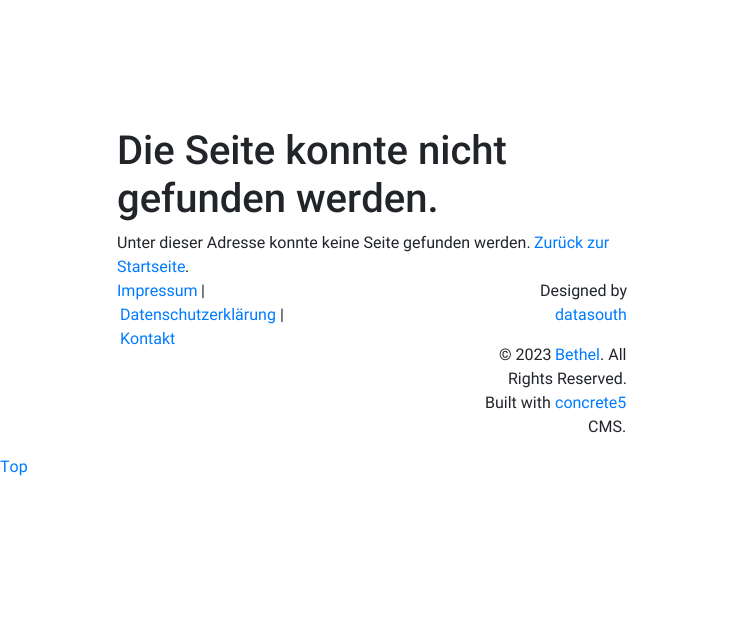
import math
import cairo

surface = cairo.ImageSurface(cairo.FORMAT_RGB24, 743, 623)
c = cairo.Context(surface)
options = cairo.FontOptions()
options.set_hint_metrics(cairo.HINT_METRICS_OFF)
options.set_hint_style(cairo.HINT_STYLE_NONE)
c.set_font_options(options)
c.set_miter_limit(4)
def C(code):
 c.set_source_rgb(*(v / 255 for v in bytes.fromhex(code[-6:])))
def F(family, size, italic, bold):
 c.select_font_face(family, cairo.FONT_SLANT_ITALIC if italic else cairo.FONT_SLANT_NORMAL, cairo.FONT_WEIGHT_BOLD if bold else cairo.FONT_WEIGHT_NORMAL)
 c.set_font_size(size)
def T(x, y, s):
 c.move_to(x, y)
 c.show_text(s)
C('ffffff')
c.paint()
F('Roboto Medium',40,0,0)
C('212529')
T(117,164,'Die Seite konnte nicht')
T(117,212,'gefunden werden.')
F('Roboto',16,0,0)
T(117,248,'Unter dieser Adresse konnte keine Seite gefunden werden.')
C('007bff')
T(534,248,'Zurück zur')
T(117,272,'Startseite')
C('212529')
T(185,272,'.')
C('007bff')
T(117,296,'Impressum')
C('212529')
T(201,296,'|')
C('007bff')
T(120,320,'Datenschutzerklärung')
C('212529')
T(280,320,'|')
C('007bff')
T(120,344,'Kontakt')
C('212529')
T(540,296,'Designed by')
C('007bff')
T(555,320,'datasouth')
C('212529')
T(499,360,'© 2023')
C('007bff')
T(555,360,'Bethel')
C('212529')
T(600,360,'. All')
T(508,384,'Rights Reserved.')
T(485,408,'Built with')
C('007bff')
T(555,408,'concrete5')
C('212529')
T(588,432,'CMS.')
C('007bff')
T(0,472,'Top')
surface.write_to_png('o.png')
